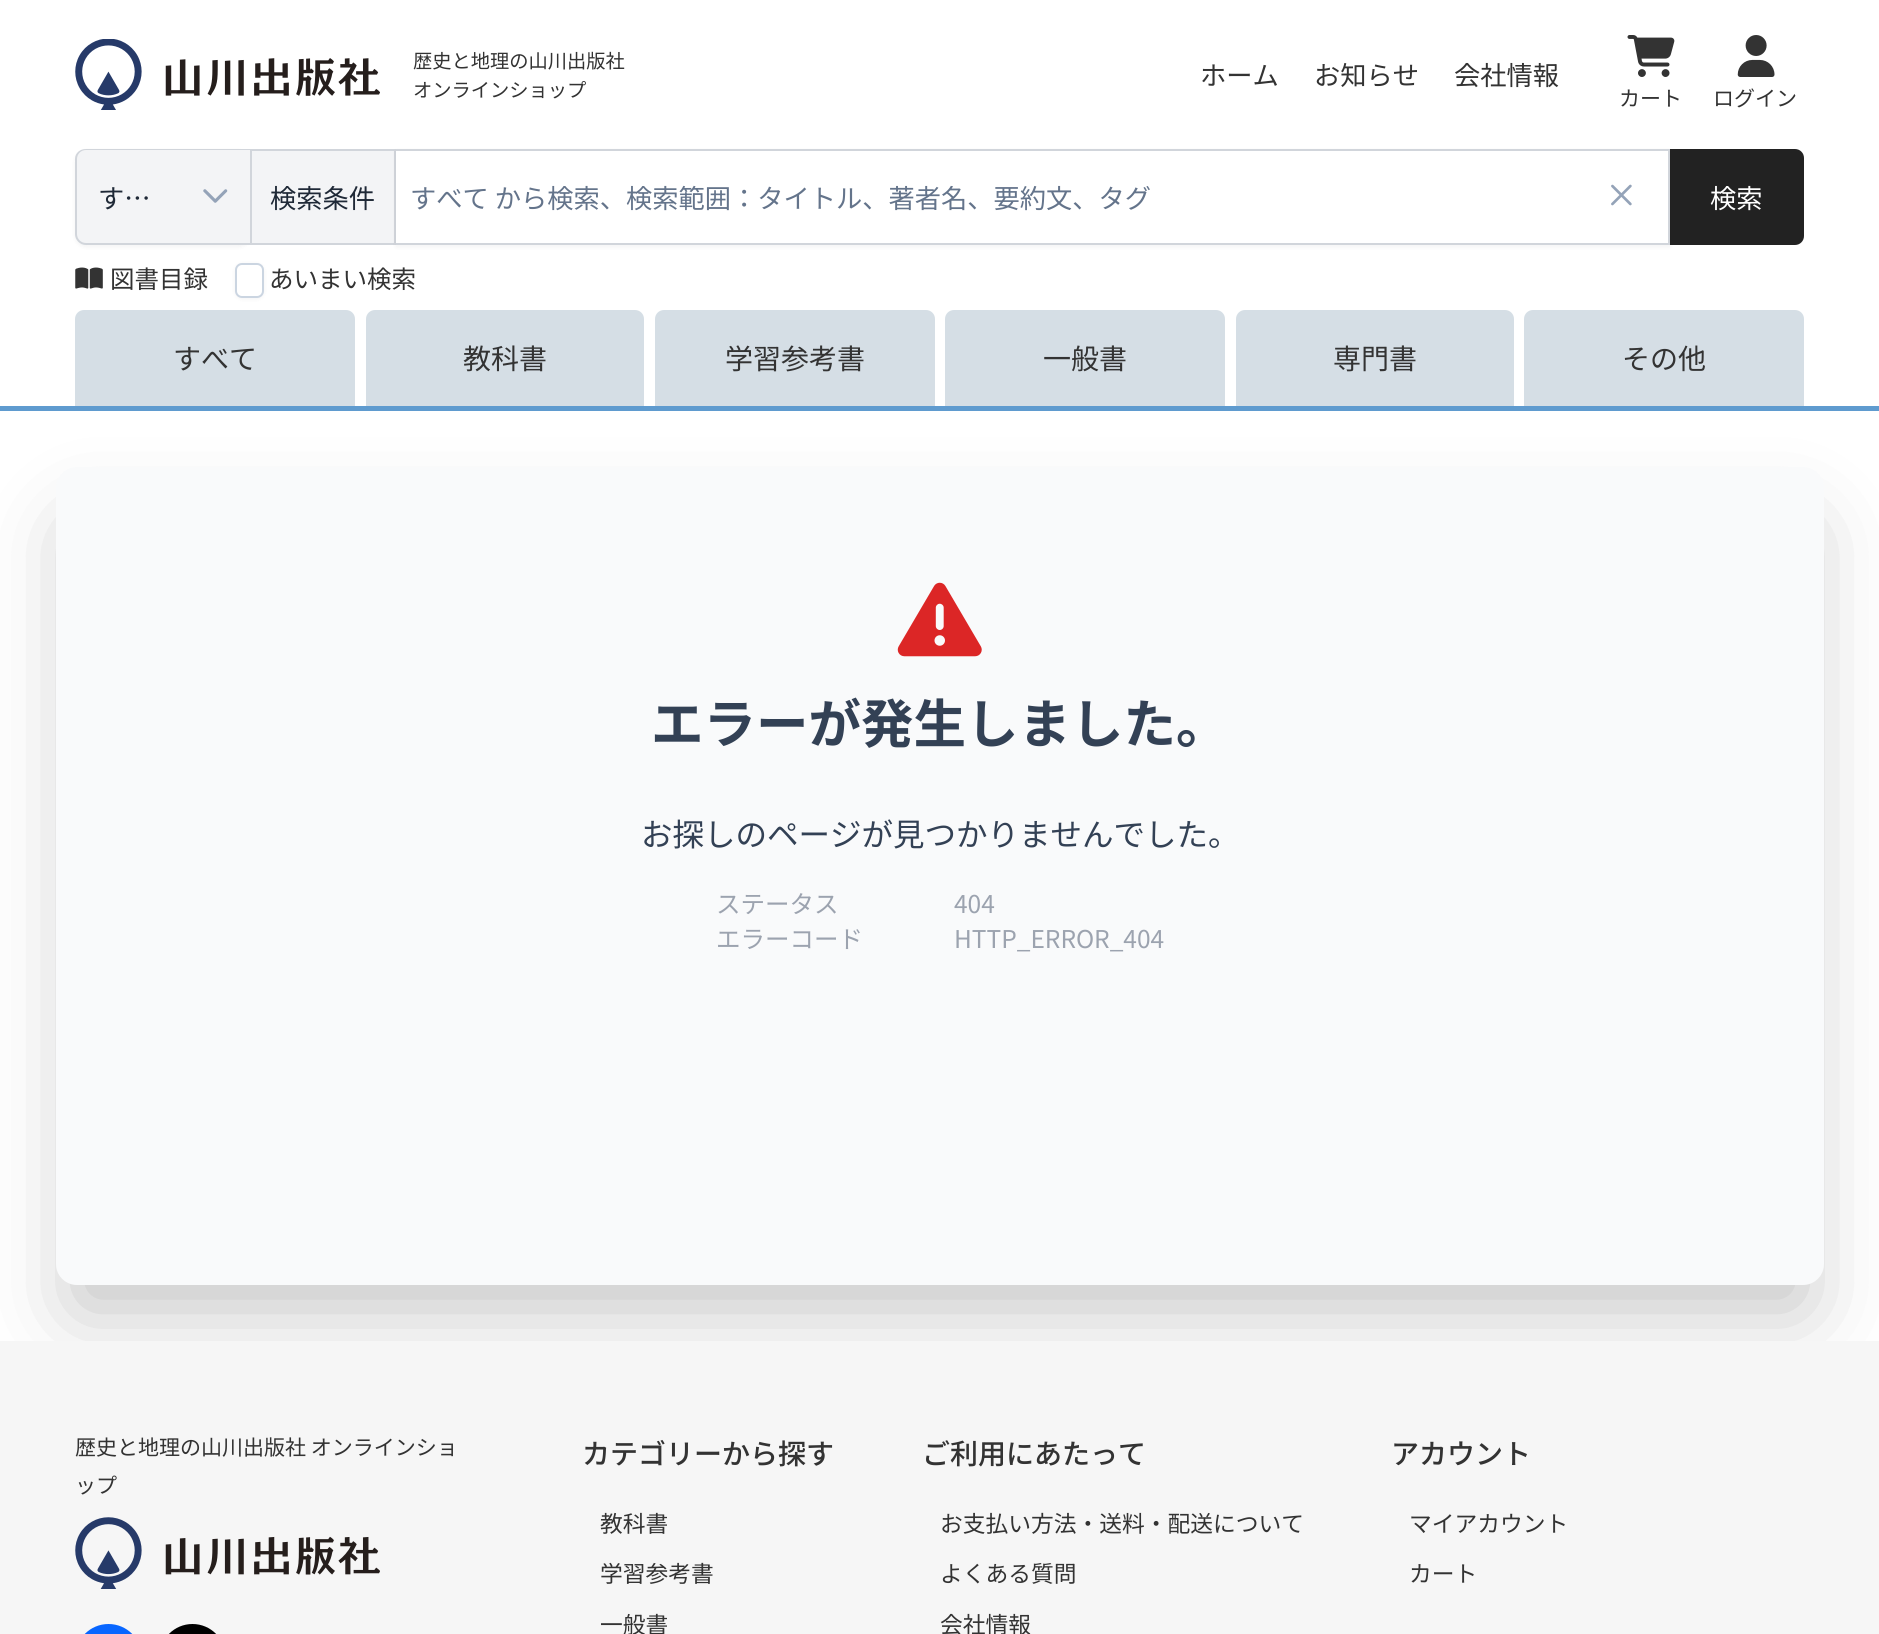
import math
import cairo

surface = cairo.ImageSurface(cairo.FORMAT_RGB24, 1879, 1634)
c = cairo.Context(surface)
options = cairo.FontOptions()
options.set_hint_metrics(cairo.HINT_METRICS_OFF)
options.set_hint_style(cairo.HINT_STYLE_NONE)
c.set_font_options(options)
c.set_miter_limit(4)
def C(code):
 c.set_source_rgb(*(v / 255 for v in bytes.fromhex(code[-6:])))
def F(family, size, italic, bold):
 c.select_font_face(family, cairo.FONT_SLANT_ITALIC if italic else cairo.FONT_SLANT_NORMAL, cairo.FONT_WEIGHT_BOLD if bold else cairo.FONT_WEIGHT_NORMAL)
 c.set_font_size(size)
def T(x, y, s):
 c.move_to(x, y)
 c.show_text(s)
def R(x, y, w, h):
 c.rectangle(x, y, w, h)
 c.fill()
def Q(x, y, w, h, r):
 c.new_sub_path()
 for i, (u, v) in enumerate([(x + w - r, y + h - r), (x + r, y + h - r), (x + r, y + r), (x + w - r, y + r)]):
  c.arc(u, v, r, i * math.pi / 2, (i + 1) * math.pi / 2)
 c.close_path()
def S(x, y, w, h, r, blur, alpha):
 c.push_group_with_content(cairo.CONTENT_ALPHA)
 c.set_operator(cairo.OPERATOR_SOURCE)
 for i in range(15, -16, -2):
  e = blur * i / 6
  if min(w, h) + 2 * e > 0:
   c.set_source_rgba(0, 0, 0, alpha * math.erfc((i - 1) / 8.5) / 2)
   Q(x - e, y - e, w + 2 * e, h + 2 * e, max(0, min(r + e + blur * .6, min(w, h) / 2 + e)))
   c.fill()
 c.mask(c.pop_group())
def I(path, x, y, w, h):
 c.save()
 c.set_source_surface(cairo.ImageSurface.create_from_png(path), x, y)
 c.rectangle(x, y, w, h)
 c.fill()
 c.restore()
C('ffffff')
c.paint()
I('1.png',75,39,305,71)
F('Noto Sans JP',19.25,0,0)
C('333333')
T(413,68,'歴史と地理の山川出版社')
T(413,97,'オンラインショップ')
F('Noto Sans JP',26.25,0,0)
T(1200,85,'ホーム')
T(1314,85,'お知らせ')
T(1454,85,'会社情報')
I('2.png',1627,35,48,42)
F('Noto Sans JP',21,0,0)
T(1619,106,'カート')
I('3.png',1737,35,38,42)
T(1713,106,'ログイン')
C('121217')
S(75,151,175,96,11,2,.05)
C('f3f4f6')
c.new_path()
c.move_to(86,149)
c.line_to(250,149)
c.line_to(250,245)
c.line_to(86,245)
c.curve_to(80,245,75,240,75,234)
c.line_to(75,160)
c.curve_to(75,154,80,149,86,149)
c.close_path()
c.fill()
C('d1d5db')
c.set_fill_rule(cairo.FILL_RULE_EVEN_ODD)
c.new_path()
c.move_to(86,149)
c.line_to(250,149)
c.line_to(250,245)
c.line_to(86,245)
c.curve_to(80,245,75,240,75,234)
c.line_to(75,159)
c.curve_to(75,153,80,149,86,149)
c.close_path()
c.move_to(86,150)
c.line_to(250,150)
c.line_to(250,243)
c.line_to(86,243)
c.curve_to(81,243,77,239,77,234)
c.line_to(77,159)
c.curve_to(77,154,81,150,86,150)
c.close_path()
c.fill()
F('Noto Sans JP',26.25,0,0)
C('1f2937')
T(98,208,'す…')
I('4.png',203,189,25,14)
C('f3f4f6')
c.rectangle(251,150,144,94)
c.fill_preserve()
C('d1d5db')
c.stroke()
C('1f2937')
T(270,208,'検索条件')
C('222222')
c.new_path()
c.move_to(1670,149)
c.line_to(1795,149)
c.curve_to(1800,149,1804,153,1804,158)
c.line_to(1804,236)
c.curve_to(1804,241,1800,245,1795,245)
c.line_to(1670,245)
c.close_path()
c.fill()
C('121217')
S(396,151,1274,96,0,2,.05)
C('ffffff')
R(396,151,1272,92)
C('d1d5db')
R(396,149,1274,2)
R(1668,149,2,96)
R(396,243,1274,2)
C('64748b')
T(410,208,'すべて から検索、検索範囲：タイトル、著者名、要約文、タグ')
I('5.png',1611,184,21,22)
C('ffffff')
T(1710,208,'検索')
I('6.png',75,267,28,22)
F('Noto Sans JP',24.5,0,0)
C('333333')
T(110,288,'図書目録')
C('121217')
S(235,264,29,35,7,2,.05)
C('ffffff')
Q(236,264,27,33,6)
c.fill_preserve()
C('cbd5e1')
c.stroke()
C('333333')
T(269,288,'あいまい検索')
C('5f9bcf')
R(0,406,1879,5)
C('d5dee5')
c.new_path()
c.move_to(84,310)
c.line_to(346,310)
c.curve_to(351,310,355,314,355,319)
c.line_to(355,406)
c.line_to(75,406)
c.line_to(75,319)
c.curve_to(75,314,79,310,84,310)
c.close_path()
c.fill()
F('Noto Sans JP',28,0,0)
C('333333')
T(173,369,'すべて')
C('d5dee5')
c.new_path()
c.move_to(375,310)
c.line_to(635,310)
c.curve_to(640,310,644,314,644,319)
c.line_to(644,406)
c.line_to(366,406)
c.line_to(366,319)
c.curve_to(366,314,370,310,375,310)
c.close_path()
c.fill()
C('333333')
T(463,369,'教科書')
C('d5dee5')
c.new_path()
c.move_to(664,310)
c.line_to(926,310)
c.curve_to(931,310,935,314,935,319)
c.line_to(935,406)
c.line_to(655,406)
c.line_to(655,319)
c.curve_to(655,314,659,310,664,310)
c.close_path()
c.fill()
C('333333')
T(725,369,'学習参考書')
C('d5dee5')
c.new_path()
c.move_to(954,310)
c.line_to(1216,310)
c.curve_to(1221,310,1225,314,1225,319)
c.line_to(1225,406)
c.line_to(945,406)
c.line_to(945,319)
c.curve_to(945,314,949,310,954,310)
c.close_path()
c.fill()
C('333333')
T(1043,369,'一般書')
C('d5dee5')
c.new_path()
c.move_to(1245,310)
c.line_to(1505,310)
c.curve_to(1510,310,1514,314,1514,319)
c.line_to(1514,406)
c.line_to(1236,406)
c.line_to(1236,319)
c.curve_to(1236,314,1240,310,1245,310)
c.close_path()
c.fill()
C('333333')
T(1333,369,'専門書')
C('d5dee5')
c.new_path()
c.move_to(1533,310)
c.line_to(1795,310)
c.curve_to(1800,310,1804,314,1804,319)
c.line_to(1804,406)
c.line_to(1524,406)
c.line_to(1524,319)
c.curve_to(1524,314,1528,310,1533,310)
c.close_path()
c.fill()
C('333333')
T(1622,369,'その他')
C('000000')
S(77,532,1726,775,0,44,.25)
C('f9fafb')
Q(56,467,1768,818,21)
c.fill()
I('7.png',897,582,85,75)
F('Noto Sans JP',52.5,0,1)
C('334155')
T(651,743,'エラーが発生しました。')
F('Noto Sans JP',31.5,0,0)
T(641,846,'お探しのページが見つかりませんでした。')
F('Noto Sans JP',24.5,0,0)
C('9ca3af')
T(716,913,'ステータス')
T(954,913,'404')
T(716,948,'エラーコード')
T(954,948,'HTTP_ERROR_404')
C('f6f6f6')
R(0,1341,1879,293)
F('Noto Sans JP',21,0,0)
C('333333')
T(75,1455,'歴史と地理の山川出版社 オンラインショ')
T(75,1493,'ップ')
I('8.png',75,1517,305,72)
I('9.png',84,1624,49,10)
C('000000')
c.arc(192.5,1657,33,0,2 * math.pi)
c.fill()
F('Noto Sans JP Medium',28,0,0)
C('333333')
T(582,1464,'カテゴリーから探す')
F('Noto Sans JP',22.75,0,0)
T(600,1532,'教科書')
T(600,1582,'学習参考書')
T(600,1633,'一般書')
F('Noto Sans JP Medium',28,0,0)
T(922,1464,'ご利用にあたって')
F('Noto Sans JP',22.75,0,0)
T(940,1532,'お支払い方法・送料・配送について')
T(940,1582,'よくある質問')
T(940,1633,'会社情報')
F('Noto Sans JP Medium',28,0,0)
T(1391,1464,'アカウント')
F('Noto Sans JP',22.75,0,0)
T(1409,1532,'マイアカウント')
T(1409,1582,'カート')
surface.write_to_png('o.png')
